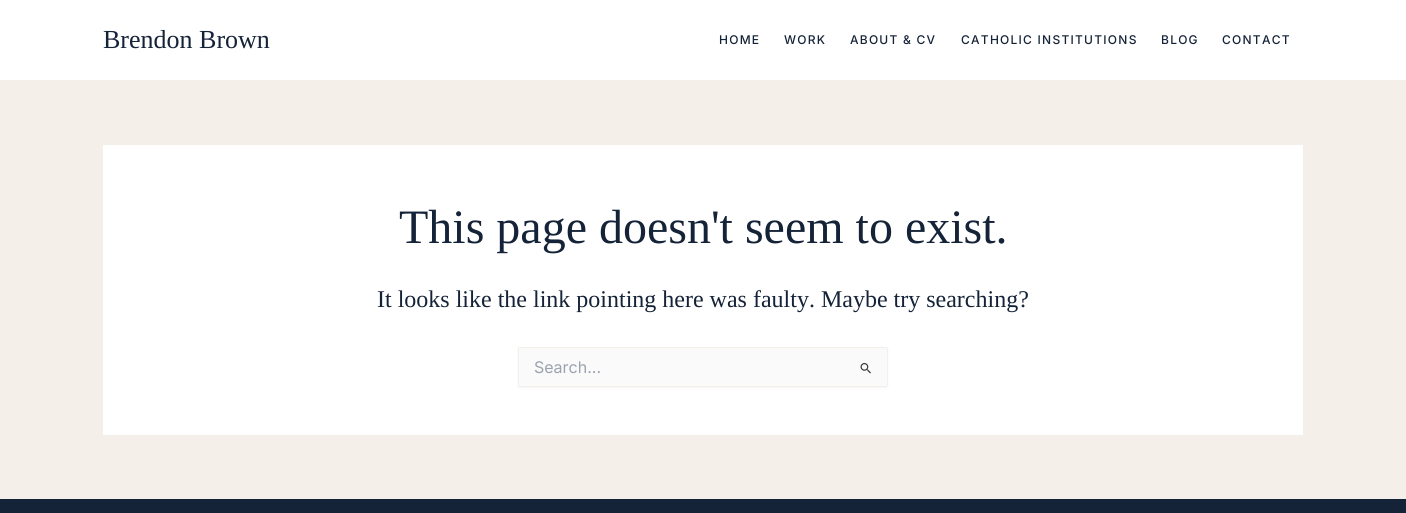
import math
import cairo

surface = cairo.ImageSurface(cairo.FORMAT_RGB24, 1406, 513)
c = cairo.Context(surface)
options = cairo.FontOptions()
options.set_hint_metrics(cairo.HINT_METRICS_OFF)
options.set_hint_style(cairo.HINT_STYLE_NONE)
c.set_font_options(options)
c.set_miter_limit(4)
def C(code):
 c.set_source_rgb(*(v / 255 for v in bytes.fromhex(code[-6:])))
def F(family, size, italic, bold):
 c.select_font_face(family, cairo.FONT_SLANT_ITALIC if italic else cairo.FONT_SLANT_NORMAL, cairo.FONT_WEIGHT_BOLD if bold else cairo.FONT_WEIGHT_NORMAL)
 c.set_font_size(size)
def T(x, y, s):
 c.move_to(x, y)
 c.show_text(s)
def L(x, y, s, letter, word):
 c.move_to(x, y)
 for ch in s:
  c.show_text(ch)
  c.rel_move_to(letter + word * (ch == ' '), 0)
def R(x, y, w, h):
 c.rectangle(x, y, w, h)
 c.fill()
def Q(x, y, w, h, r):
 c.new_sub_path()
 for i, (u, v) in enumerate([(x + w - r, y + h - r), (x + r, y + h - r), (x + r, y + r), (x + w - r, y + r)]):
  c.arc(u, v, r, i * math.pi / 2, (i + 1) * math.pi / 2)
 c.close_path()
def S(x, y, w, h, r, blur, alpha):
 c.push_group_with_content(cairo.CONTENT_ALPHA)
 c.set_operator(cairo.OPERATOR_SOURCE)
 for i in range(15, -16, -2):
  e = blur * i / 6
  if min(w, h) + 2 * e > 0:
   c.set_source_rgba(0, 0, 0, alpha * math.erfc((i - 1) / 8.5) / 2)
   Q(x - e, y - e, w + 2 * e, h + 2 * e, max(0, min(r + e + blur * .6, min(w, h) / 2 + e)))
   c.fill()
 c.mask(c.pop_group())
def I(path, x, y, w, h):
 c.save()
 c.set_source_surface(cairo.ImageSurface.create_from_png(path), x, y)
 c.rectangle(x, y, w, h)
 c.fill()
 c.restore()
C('f4f0e9')
c.paint()
C('ffffff')
R(0,0,1406,80)
F('Liberation Serif',26,0,0)
C('152338')
T(103,48,'Brendon Brown')
F('Inter Medium',12,0,0)
L(719,44,'HOME',1.25,0)
L(784,44,'WORK',1.25,0)
L(850,44,'ABOUT & CV',1.25,0)
L(961,44,'CATHOLIC INSTITUTIONS',1.25,0)
L(1161,44,'BLOG',1.25,0)
L(1222,44,'CONTACT',1.25,0)
C('ffffff')
R(103,145,1200,290)
F('Liberation Serif',48,0,0)
C('152338')
T(399,243,'This page doesn\'t seem to exist.')
F('Liberation Serif',24,0,0)
T(377,307,'It looks like the link pointing here was faulty. Maybe try searching?')
C('000000')
S(518,348,370,40,2,1,.05)
C('fafafa')
Q(518.5,347.5,369,39,1.5)
c.fill_preserve()
C('f4f0e9')
c.set_line_width(1)
c.stroke()
F('Inter',16,0,0)
C('9ca3af')
T(534,373,'Search...')
I('1.png',860,363,11,11)
C('152338')
R(0,499,1406,14)
surface.write_to_png('o.png')
